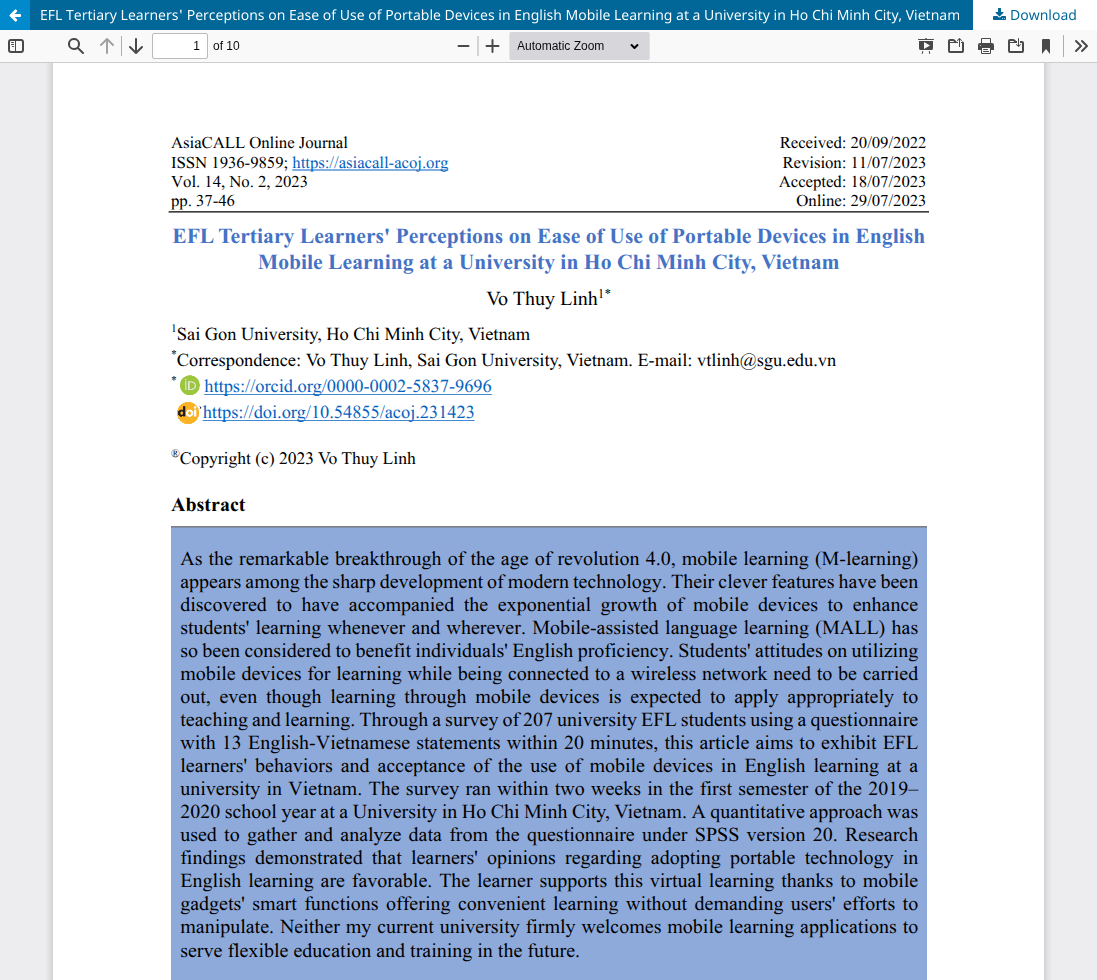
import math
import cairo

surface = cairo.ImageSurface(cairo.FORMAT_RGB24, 1097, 980)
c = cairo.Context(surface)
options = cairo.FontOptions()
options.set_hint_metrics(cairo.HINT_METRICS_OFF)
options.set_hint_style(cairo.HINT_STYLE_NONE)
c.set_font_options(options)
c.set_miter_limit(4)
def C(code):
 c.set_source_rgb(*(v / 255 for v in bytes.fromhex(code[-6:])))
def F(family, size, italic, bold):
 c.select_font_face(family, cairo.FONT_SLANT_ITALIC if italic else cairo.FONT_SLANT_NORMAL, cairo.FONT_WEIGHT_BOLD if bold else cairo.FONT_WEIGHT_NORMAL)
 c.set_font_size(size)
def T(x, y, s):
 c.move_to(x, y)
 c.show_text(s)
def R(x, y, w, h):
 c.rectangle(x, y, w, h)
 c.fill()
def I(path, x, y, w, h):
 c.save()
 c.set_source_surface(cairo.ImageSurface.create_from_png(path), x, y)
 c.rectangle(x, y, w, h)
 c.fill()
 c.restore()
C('ffffff')
c.paint()
C('006798')
R(30,0,943,30)
C('008acb')
R(0,0,30,30)
I('1.png',9,9,12,13)
F('Noto Sans',14,0,0)
C('ffffff')
T(40,20,'EFL Tertiary Learners\' Perceptions on Ease of Use of Portable Devices in English Mobile Learning at a University in Ho Chi Minh City, Vietnam')
I('2.png',993,8,13,12)
C('006798')
T(1010,20,'Download')
I('3.png',0,30,1097,950)
surface.write_to_png('o.png')
